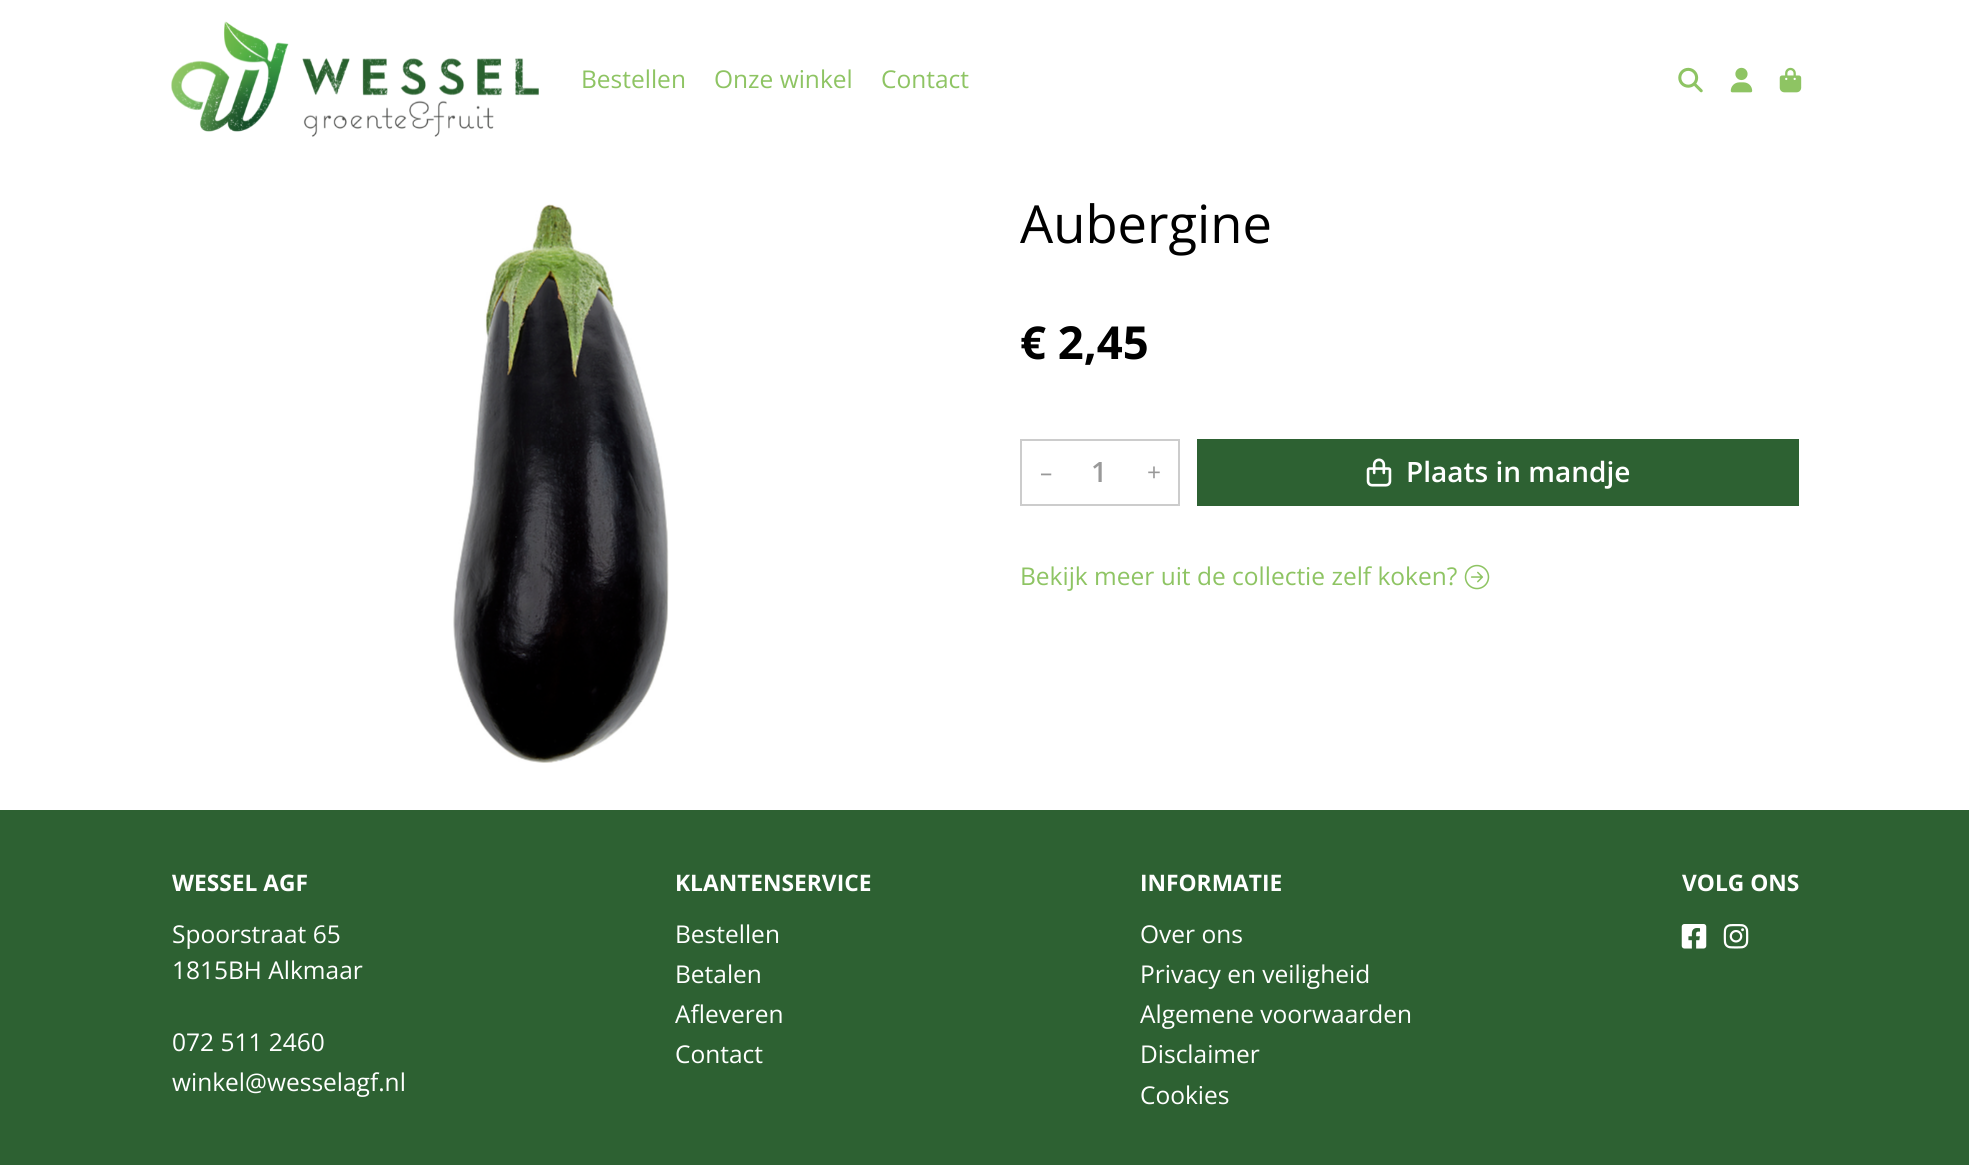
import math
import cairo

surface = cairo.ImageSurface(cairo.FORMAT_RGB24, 1969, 1165)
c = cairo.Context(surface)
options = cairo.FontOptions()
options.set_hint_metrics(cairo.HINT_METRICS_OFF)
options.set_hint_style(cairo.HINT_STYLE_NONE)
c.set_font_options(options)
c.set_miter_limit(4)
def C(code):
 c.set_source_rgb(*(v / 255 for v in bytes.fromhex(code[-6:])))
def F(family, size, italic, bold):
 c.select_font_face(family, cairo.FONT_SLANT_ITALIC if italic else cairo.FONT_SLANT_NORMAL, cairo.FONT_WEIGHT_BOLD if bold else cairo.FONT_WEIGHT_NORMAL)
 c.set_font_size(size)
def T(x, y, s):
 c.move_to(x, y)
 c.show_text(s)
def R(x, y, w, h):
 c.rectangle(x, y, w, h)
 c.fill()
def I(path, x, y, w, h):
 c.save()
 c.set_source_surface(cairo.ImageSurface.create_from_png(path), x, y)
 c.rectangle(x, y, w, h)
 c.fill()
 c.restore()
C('ffffff')
c.paint()
I('1.png',171,21,368,116)
F('Open Sans',24.5,0,0)
C('8ec463')
T(581,88,'Bestellen')
T(714,88,'Onze winkel')
T(881,88,'Contact')
I('2.png',1678,67,25,26)
I('3.png',1730,67,23,26)
I('4.png',1779,67,23,26)
I('5.png',453,204,216,559)
F('Open Sans',52.5,0,0)
C('000000')
T(1020,243,'Aubergine')
F('Open Sans',45.5,0,1)
T(1020,359,'€ 2,45')
c.rectangle(1021,440,158,65)
C('cccccc')
c.stroke()
F('Open Sans',24.5,0,0)
C('999999')
T(1040,481,'–')
F('Open Sans SemiBold',28,0,0)
T(1091,482,'1')
F('Open Sans',24.5,0,0)
T(1147,481,'+')
C('2d6132')
R(1197,439,602,67)
I('6.png',1366,458,26,29)
F('Open Sans SemiBold',28,0,0)
C('ffffff')
T(1406,482,'Plaats in mandje')
F('Open Sans',24.5,0,0)
C('8ec463')
T(1020,585,'Bekijk meer uit de collectie zelf koken?')
I('7.png',1464,564,26,26)
C('2d6132')
R(0,810,1969,355)
F('Open Sans',22.75,0,1)
C('ffffff')
T(172,891,'WESSEL AGF')
F('Open Sans',24.5,0,0)
T(172,943,'Spoorstraat 65')
T(172,979,'1815BH Alkmaar')
T(172,1051,'072 511 2460')
T(172,1091,'winkel@wesselagf.nl')
F('Open Sans',22.75,0,1)
T(675,891,'KLANTENSERVICE')
F('Open Sans',24.5,0,0)
T(675,943,'Bestellen')
T(675,983,'Betalen')
T(675,1023,'Afleveren')
T(675,1063,'Contact')
F('Open Sans',22.75,0,1)
T(1140,891,'INFORMATIE')
F('Open Sans',24.5,0,0)
T(1140,943,'Over ons')
T(1140,983,'Privacy en veiligheid')
T(1140,1023,'Algemene voorwaarden')
T(1140,1063,'Disclaimer')
T(1140,1104,'Cookies')
F('Open Sans',22.75,0,1)
T(1682,891,'VOLG ONS')
I('8.png',1681,924,26,25)
I('9.png',1723,924,26,25)
surface.write_to_png('o.png')
